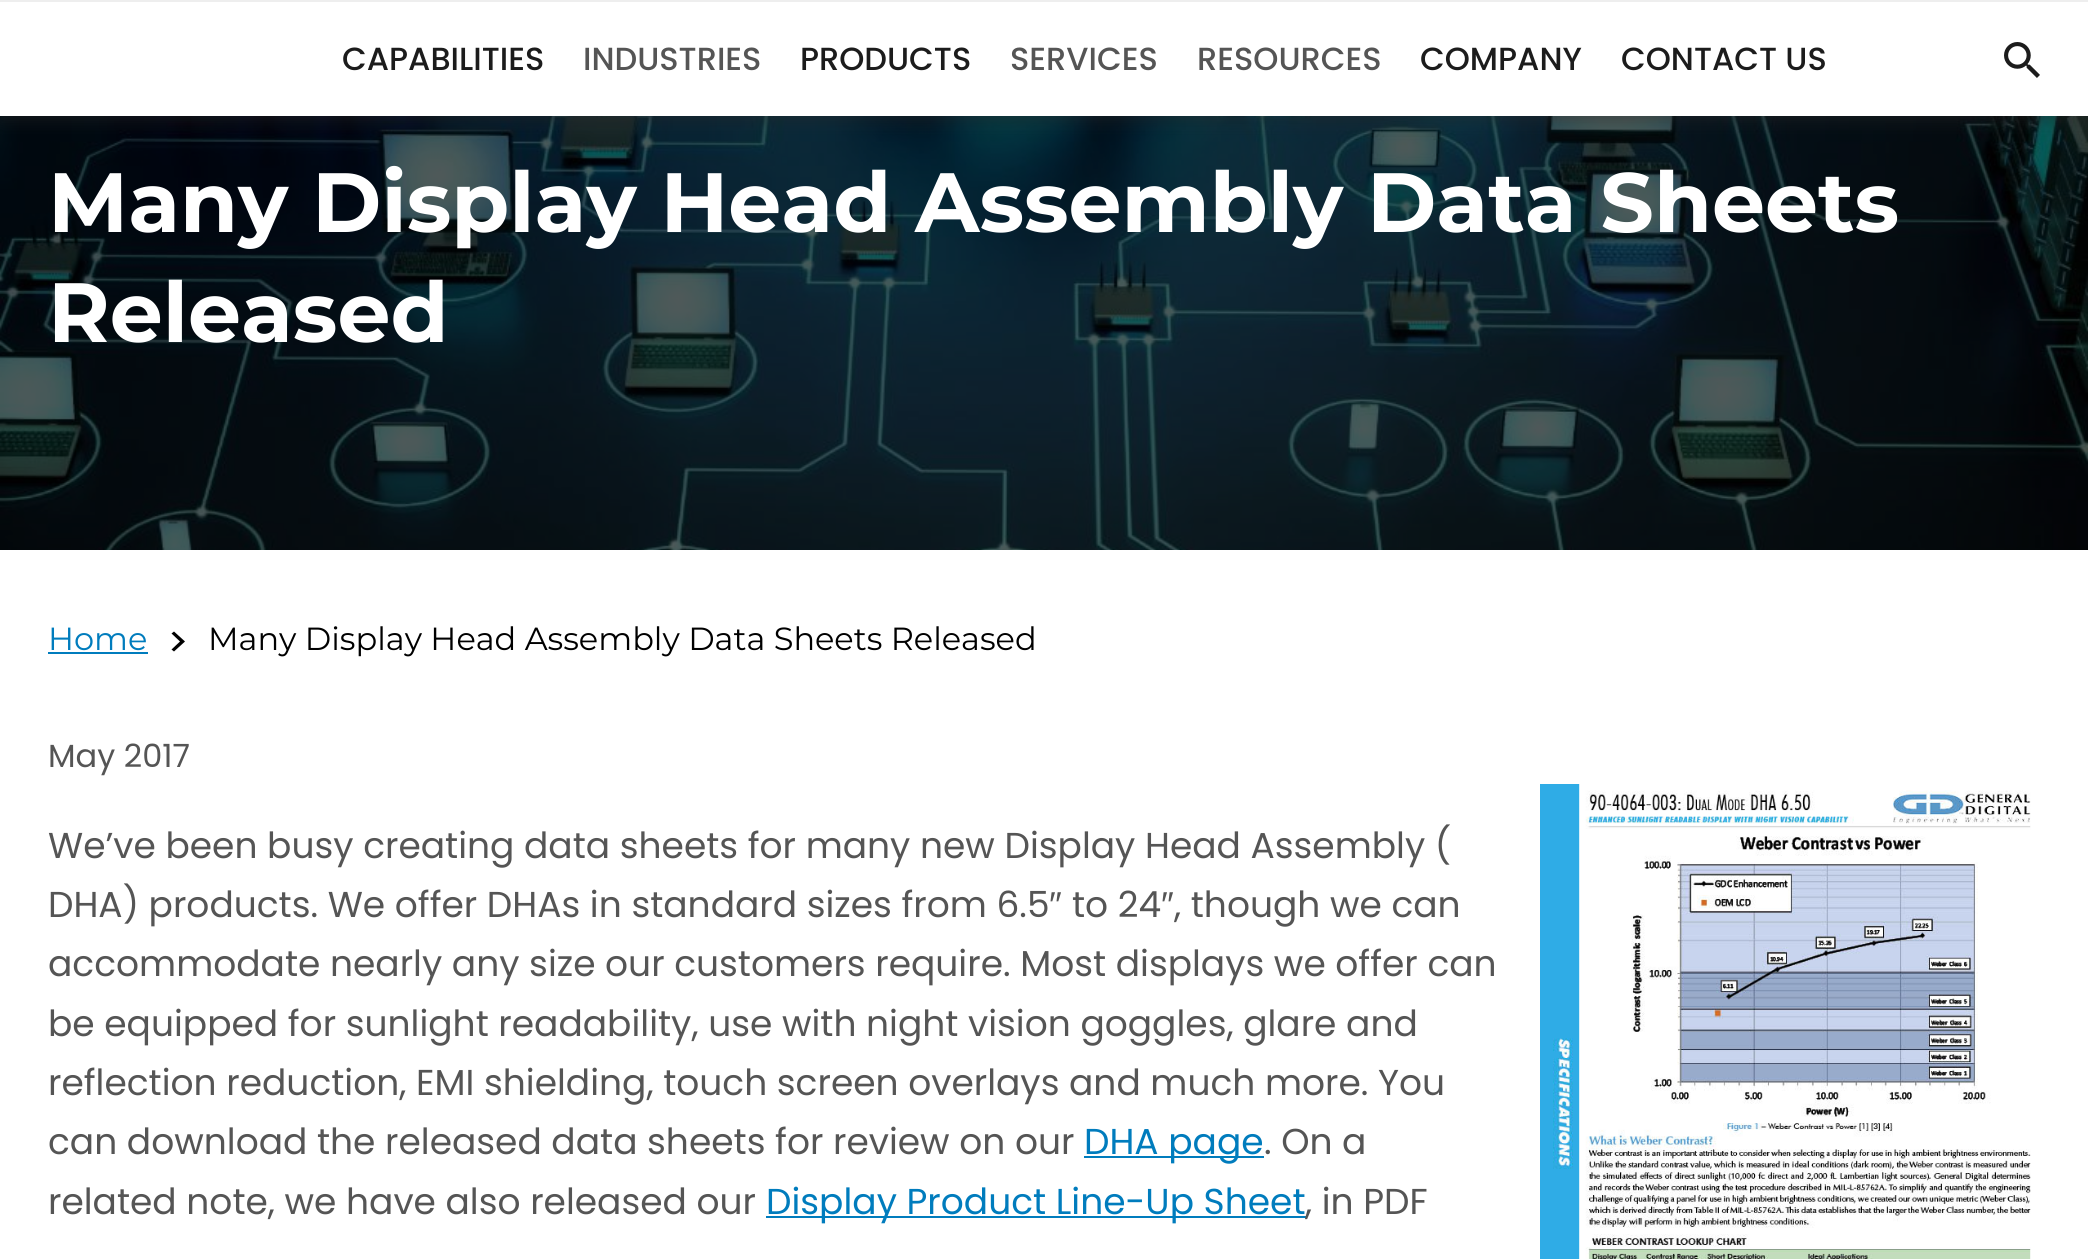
import math
import cairo

surface = cairo.ImageSurface(cairo.FORMAT_RGB24, 2088, 1259)
c = cairo.Context(surface)
options = cairo.FontOptions()
options.set_hint_metrics(cairo.HINT_METRICS_OFF)
options.set_hint_style(cairo.HINT_STYLE_NONE)
c.set_font_options(options)
c.set_miter_limit(4)
def C(code):
 c.set_source_rgb(*(v / 255 for v in bytes.fromhex(code[-6:])))
def F(family, size, italic, bold):
 c.select_font_face(family, cairo.FONT_SLANT_ITALIC if italic else cairo.FONT_SLANT_NORMAL, cairo.FONT_WEIGHT_BOLD if bold else cairo.FONT_WEIGHT_NORMAL)
 c.set_font_size(size)
def T(x, y, s):
 c.move_to(x, y)
 c.show_text(s)
def R(x, y, w, h):
 c.rectangle(x, y, w, h)
 c.fill()
def Q(x, y, w, h, r):
 c.new_sub_path()
 for i, (u, v) in enumerate([(x + w - r, y + h - r), (x + r, y + h - r), (x + r, y + r), (x + w - r, y + r)]):
  c.arc(u, v, r, i * math.pi / 2, (i + 1) * math.pi / 2)
 c.close_path()
def S(x, y, w, h, r, blur, alpha):
 c.push_group_with_content(cairo.CONTENT_ALPHA)
 c.set_operator(cairo.OPERATOR_SOURCE)
 for i in range(15, -16, -2):
  e = blur * i / 6
  if min(w, h) + 2 * e > 0:
   c.set_source_rgba(0, 0, 0, alpha * math.erfc((i - 1) / 8.5) / 2)
   Q(x - e, y - e, w + 2 * e, h + 2 * e, max(0, min(r + e + blur * .6, min(w, h) / 2 + e)))
   c.fill()
 c.mask(c.pop_group())
def I(path, x, y, w, h):
 c.save()
 c.set_source_surface(cairo.ImageSurface.create_from_png(path), x, y)
 c.rectangle(x, y, w, h)
 c.fill()
 c.restore()
C('ffffff')
c.paint()
I('2.png',0,116,2088,434)
C('282828')
S(0,6,2088,116,0,7,.4)
C('ffffff')
R(0,2,2088,114)
C('eeeeee')
R(0,0,2088,2)
F('Poppins Medium',32,0,0)
C('1c1c1c')
T(342,70,'CAPABILITIES')
C('555555')
T(583,70,'INDUSTRIES')
C('1c1c1c')
T(800,70,'PRODUCTS')
C('555555')
T(1010,70,'SERVICES')
T(1197,70,'RESOURCES')
C('1c1c1c')
T(1420,70,'COMPANY')
T(1621,70,'CONTACT US')
I('1.png',2004,42,36,36)
F('Montserrat',84,0,1)
C('ffffff')
T(48,232,'Many Display Head Assembly Data Sheets')
T(48,342,'Released')
F('Montserrat',32,0,0)
C('007cbd')
T(48,650,'Home')
R(48,652,100,2)
C('000000')
c.new_path()
c.move_to(171.5,633.5)
c.line_to(180,641.5)
c.line_to(171.5,649.5)
c.line_to(174,651.5)
c.line_to(185,641.5)
c.line_to(174,631.5)
c.close_path()
c.fill()
T(208,650,'Many Display Head Assembly Data Sheets Released')
F('Poppins',32,0,0)
C('555555')
T(48,767,'May 2017')
F('Poppins',36,0,0)
T(48,858,'We’ve been busy creating data sheets for many new Display Head Assembly (')
T(48,917,'DHA) products. We offer DHAs in standard sizes from 6.5')
F('Liberation Sans',36,0,0)
T(1049,917,'″')
F('Poppins',36,0,0)
T(1072,917,'to 24')
F('Liberation Sans',36,0,0)
T(1161,917,'″')
F('Poppins',36,0,0)
T(1174,917,', though we can')
T(48,976,'accommodate nearly any size our customers require. Most displays we offer can')
T(48,1036,'be equipped for sunlight readability, use with night vision goggles, glare and')
T(48,1095,'reflection reduction, EMI shielding, touch screen overlays and much more. You')
T(48,1154,'can download the released data sheets for review on our')
C('007cbd')
R(1084,1156,180,2)
T(1084,1154,'DHA page')
C('555555')
T(1264,1154,'. On a')
T(48,1214,'related note, we have also released our')
C('007cbd')
R(766,1216,540,2)
T(766,1214,'Display Product Line-Up Sheet')
C('555555')
T(1305,1214,', in PDF')
I('3.png',1540,784,491,475)
surface.write_to_png('o.png')
